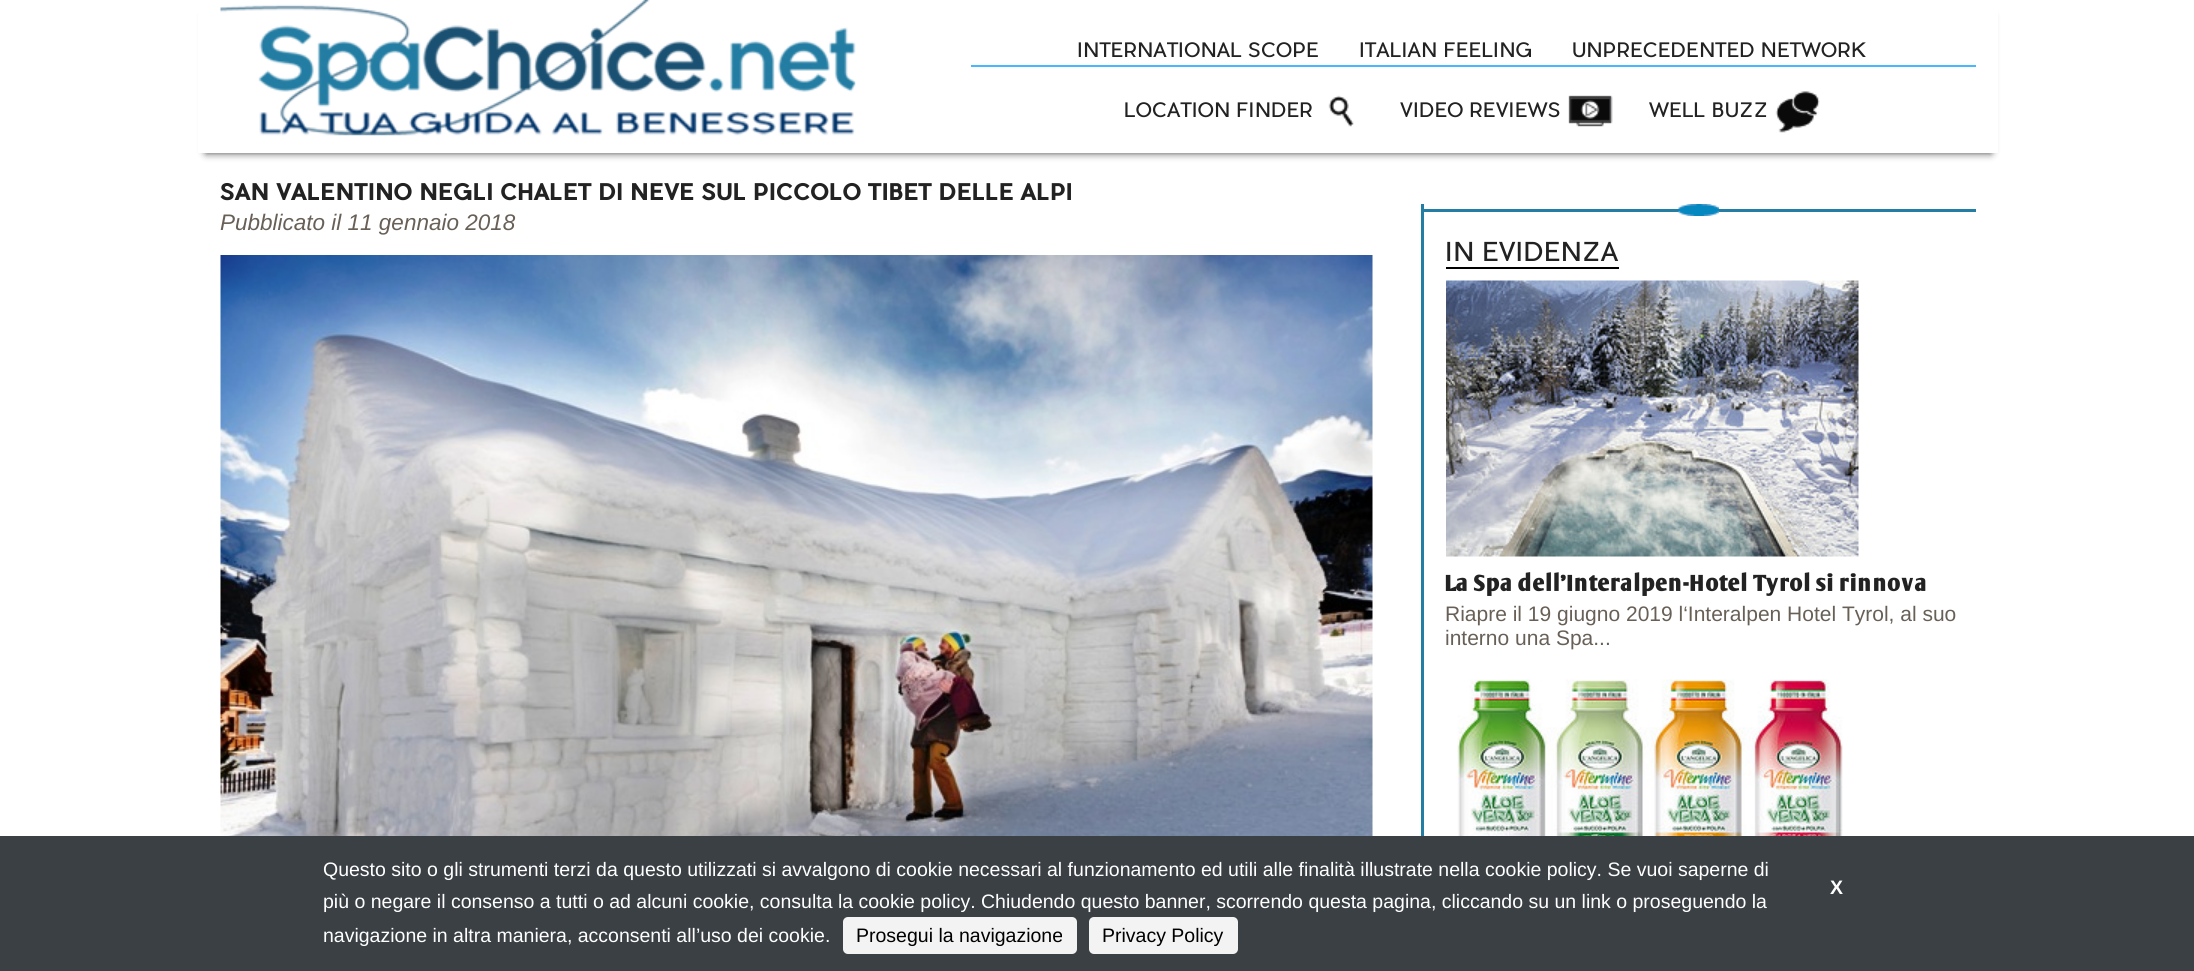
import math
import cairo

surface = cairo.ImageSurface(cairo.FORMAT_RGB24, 2194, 971)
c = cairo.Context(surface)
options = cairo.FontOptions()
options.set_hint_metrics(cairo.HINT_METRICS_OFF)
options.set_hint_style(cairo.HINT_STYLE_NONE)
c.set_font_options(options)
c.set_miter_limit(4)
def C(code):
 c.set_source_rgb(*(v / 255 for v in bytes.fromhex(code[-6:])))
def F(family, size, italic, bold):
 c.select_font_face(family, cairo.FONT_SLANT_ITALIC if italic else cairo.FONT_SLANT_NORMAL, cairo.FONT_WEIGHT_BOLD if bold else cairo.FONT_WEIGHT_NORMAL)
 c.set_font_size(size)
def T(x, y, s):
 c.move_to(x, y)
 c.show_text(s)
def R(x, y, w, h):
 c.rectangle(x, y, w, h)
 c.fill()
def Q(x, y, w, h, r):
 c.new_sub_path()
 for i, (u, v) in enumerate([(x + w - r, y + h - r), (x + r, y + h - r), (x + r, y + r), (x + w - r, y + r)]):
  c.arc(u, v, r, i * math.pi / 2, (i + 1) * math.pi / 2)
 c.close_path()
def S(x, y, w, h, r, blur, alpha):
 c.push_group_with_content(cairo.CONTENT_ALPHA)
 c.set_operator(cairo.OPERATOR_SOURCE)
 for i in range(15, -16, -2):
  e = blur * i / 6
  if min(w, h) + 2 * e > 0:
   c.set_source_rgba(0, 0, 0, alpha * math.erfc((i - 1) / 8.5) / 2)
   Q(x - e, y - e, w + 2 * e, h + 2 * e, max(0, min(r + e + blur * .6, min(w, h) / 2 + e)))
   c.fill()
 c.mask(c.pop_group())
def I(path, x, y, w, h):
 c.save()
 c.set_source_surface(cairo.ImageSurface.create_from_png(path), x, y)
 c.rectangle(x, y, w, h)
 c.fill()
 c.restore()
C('ffffff')
c.paint()
c.save()
c.set_fill_rule(cairo.FILL_RULE_EVEN_ODD)
c.new_path()
c.move_to(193,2)
c.line_to(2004,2)
c.line_to(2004,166)
c.line_to(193,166)
c.close_path()
c.move_to(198,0)
c.line_to(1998,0)
c.line_to(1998,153)
c.line_to(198,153)
c.close_path()
c.clip()
C('000000')
S(206,15,1785,138,0,4,.75)
c.restore()
I('1.png',220,0,636,136)
C('47b7ff')
R(971,65,1005,2)
F('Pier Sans',19.5,0,0)
C('222222')
T(1077,57,'INTERNATIONAL SCOPE')
T(1359,57,'ITALIAN FEELING')
T(1572,57,'UNPRECEDENTED NETWORK')
I('2.png',1328,95,26,32)
T(1124,117,'LOCATION FINDER')
I('3.png',1568,95,45,32)
T(1400,117,'VIDEO REVIEWS')
I('4.png',1775,91,45,42)
T(1649,117,'WELL BUZZ')
F('Pier Sans',22.5,0,1)
T(220,200,'SAN VALENTINO NEGLI CHALET DI NEVE SUL PICCOLO TIBET DELLE ALPI')
F('Liberation Sans',22.5,1,0)
C('686057')
T(220,230,'Pubblicato il 11 gennaio 2018')
I('5.png',220,255,1153,581)
C('247da3')
R(1421,204,3,632)
R(1424,209,552,3)
I('6.png',1678,204,41,12)
C('000000')
R(1446,267,173,2)
F('Pier Sans',25.5,0,0)
C('222222')
T(1445,261,'IN EVIDENZA')
I('7.png',1446,280,413,277)
F('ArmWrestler',22.5,0,1)
T(1445,591,'La Spa dell\'Interalpen-Hotel Tyrol si rinnova')
F('Liberation Sans',21,0,0)
C('686057')
T(1445,621,'Riapre il 19 giugno 2019 l‘Interalpen Hotel Tyrol, al suo')
T(1445,645,'interno una Spa...')
I('8.png',1457,679,386,157)
C('3b4045')
R(0,836,2194,135)
F('Liberation Sans',19.5,0,0)
C('ffffff')
T(323,876,'Questo sito o gli strumenti terzi da questo utilizzati si avvalgono di cookie necessari al funzionamento ed utili alle finalità illustrate nella cookie policy. Se vuoi saperne di')
F('Liberation Sans',19.5,0,1)
T(1830,894,'X')
F('Liberation Sans',19.5,0,0)
T(323,908,'più o negare il consenso a tutti o ad alcuni cookie, consulta la cookie policy. Chiudendo questo banner, scorrendo questa pagina, cliccando su un link o proseguendo la')
T(323,942,'navigazione in altra maniera, acconsenti all’uso dei cookie.')
C('f3f3f3')
Q(843,917,234,37,5)
c.fill()
C('000000')
T(856,942,'Prosegui la navigazione')
C('f3f3f3')
Q(1089,917,149,37,5)
c.fill()
C('000000')
T(1102,942,'Privacy Policy')
surface.write_to_png('o.png')
